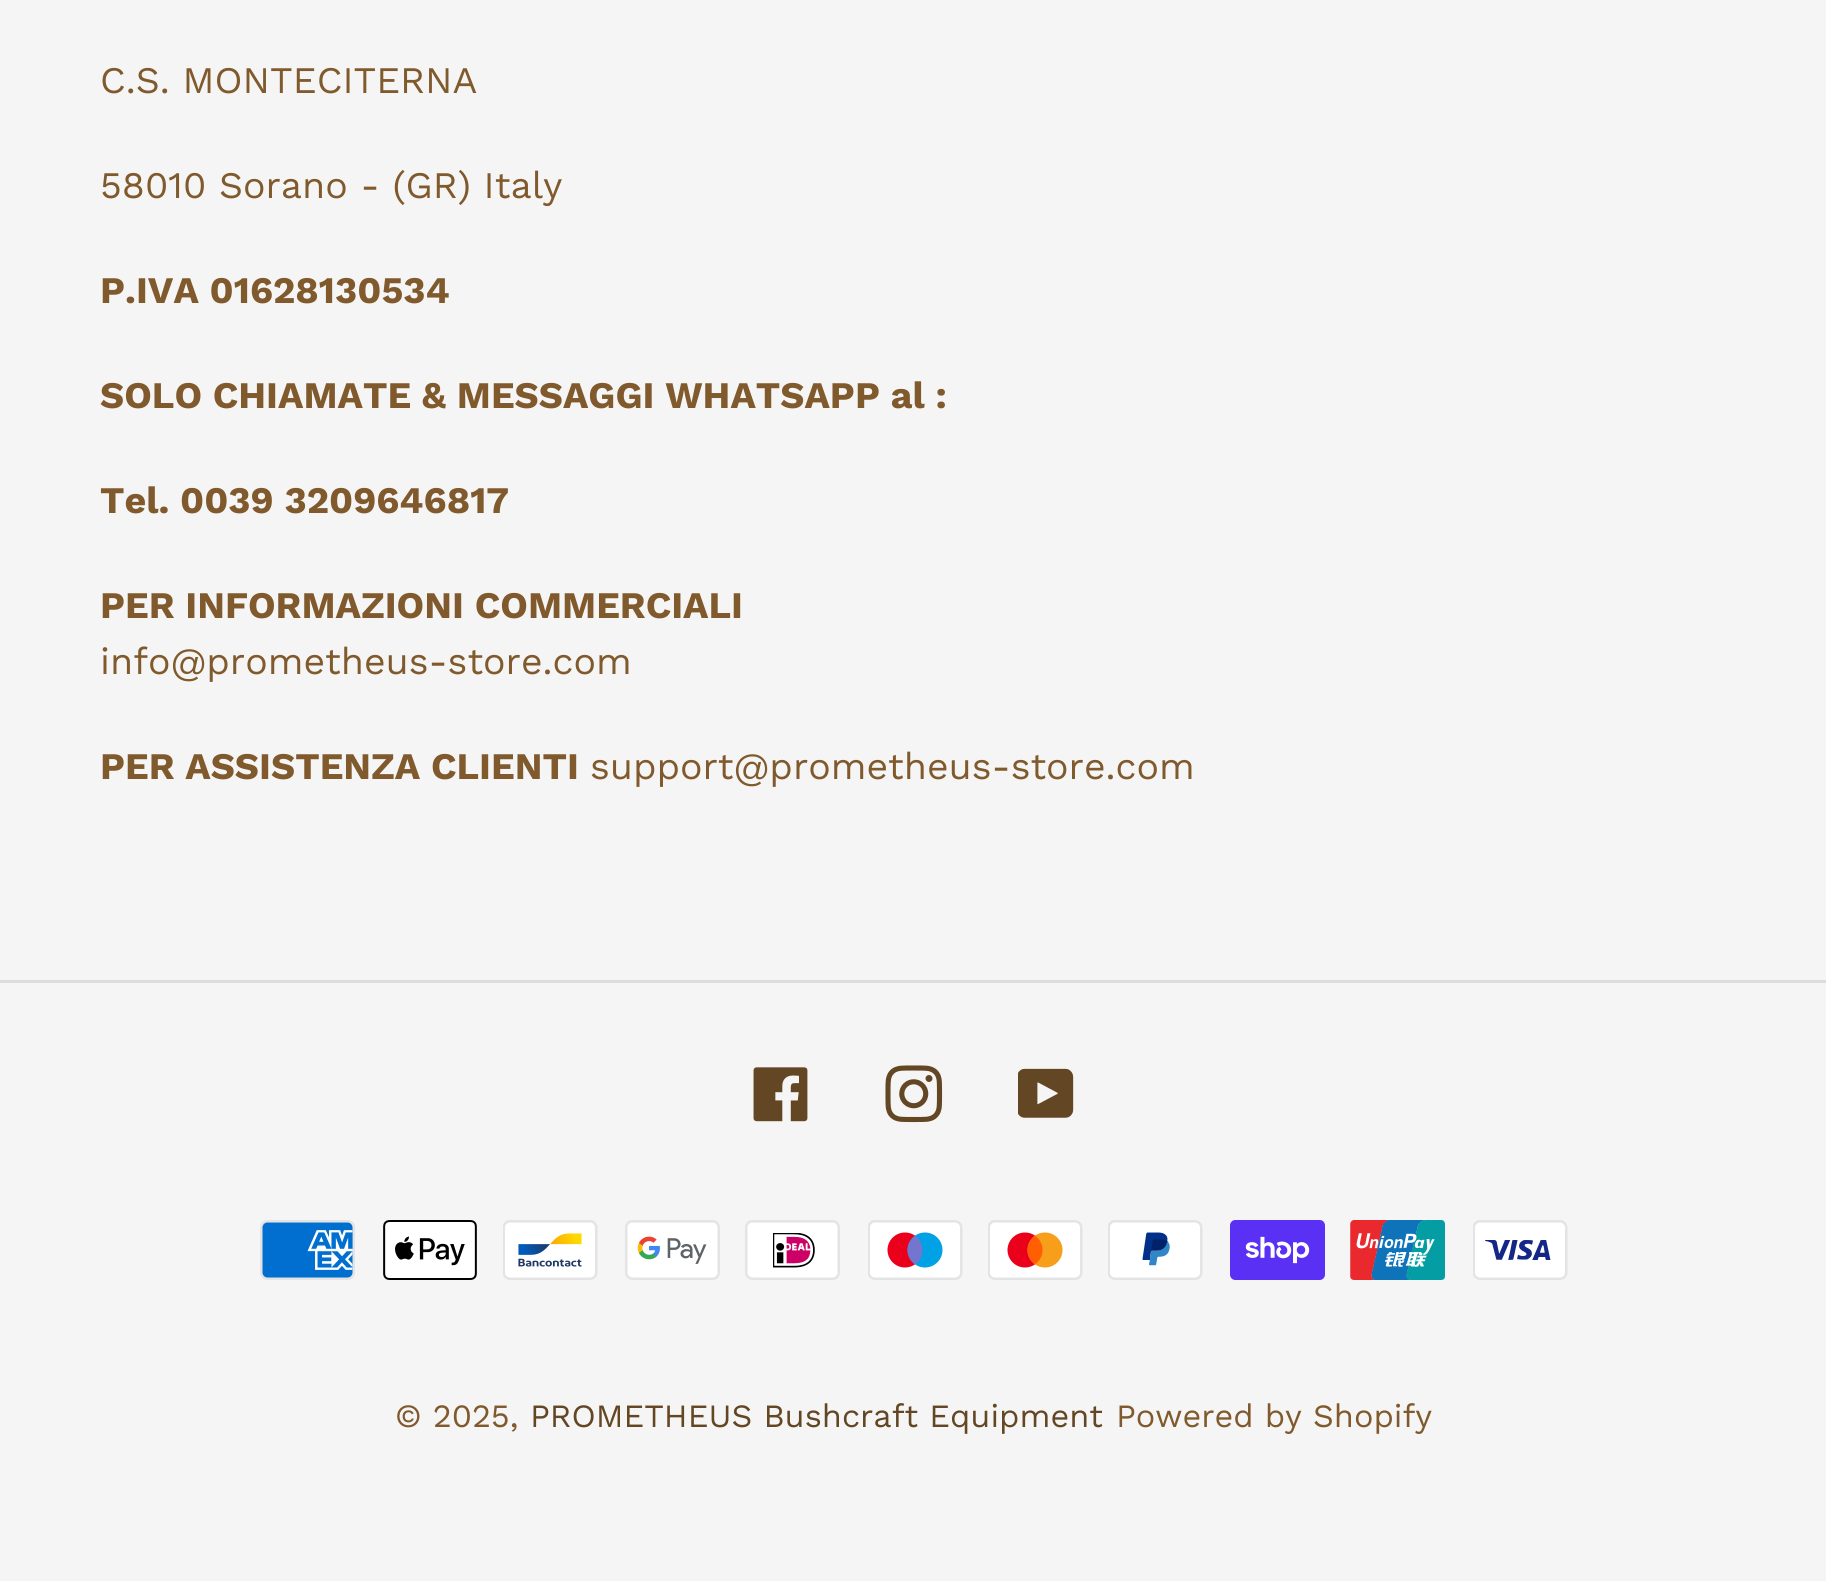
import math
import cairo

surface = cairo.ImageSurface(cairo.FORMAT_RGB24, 1826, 1581)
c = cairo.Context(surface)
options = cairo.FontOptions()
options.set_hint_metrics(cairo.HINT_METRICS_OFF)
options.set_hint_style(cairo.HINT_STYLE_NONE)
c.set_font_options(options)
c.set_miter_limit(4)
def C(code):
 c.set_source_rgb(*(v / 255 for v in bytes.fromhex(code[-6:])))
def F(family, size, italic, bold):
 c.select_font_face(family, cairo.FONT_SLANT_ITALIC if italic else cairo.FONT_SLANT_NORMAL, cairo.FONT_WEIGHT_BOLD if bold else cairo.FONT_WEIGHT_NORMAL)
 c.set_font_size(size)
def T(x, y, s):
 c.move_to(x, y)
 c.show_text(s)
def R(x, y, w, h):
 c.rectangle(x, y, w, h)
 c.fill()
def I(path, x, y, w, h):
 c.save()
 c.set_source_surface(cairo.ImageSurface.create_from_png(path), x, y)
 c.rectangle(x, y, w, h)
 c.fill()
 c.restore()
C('f5f5f5')
c.paint()
F('Work Sans',37.5,0,0)
C('805a2d')
T(100,93,'C.S. MONTECITERNA')
T(100,198,'58010 Sorano - (GR) Italy')
F('Work Sans',37.5,0,1)
T(100,303,'P.IVA 01628130534')
T(100,408,'SOLO CHIAMATE & MESSAGGI WHATSAPP al :')
T(100,513,'Tel. 0039 3209646817')
T(100,618,'PER INFORMAZIONI COMMERCIALI')
F('Work Sans',37.5,0,0)
T(100,674,'info@prometheus-store.com')
F('Work Sans',37.5,0,1)
T(100,779,'PER ASSISTENZA CLIENTI')
F('Work Sans',37.5,0,0)
T(590,779,'support@prometheus-store.com')
C('dcdcdc')
R(0,980,1826,3)
I('1.png',753,1067,55,55)
I('2.png',885,1065,58,58)
I('3.png',1018,1068,56,50)
I('4.png',260,1220,95,60)
I('5.png',383,1220,94,60)
I('6.png',503,1220,95,60)
I('7.png',625,1220,95,60)
I('8.png',745,1220,95,60)
I('9.png',868,1220,95,60)
I('10.png',988,1220,95,60)
I('11.png',1108,1220,95,60)
I('12.png',1230,1220,95,60)
I('13.png',1350,1220,95,60)
I('14.png',1473,1220,95,60)
F('Work Sans',32.5,0,0)
C('805a2d')
T(395,1427,'© 2025,')
C('634724')
T(530,1427,'PROMETHEUS Bushcraft Equipment')
C('805a2d')
T(1116,1427,'Powered by Shopify')
surface.write_to_png('o.png')
